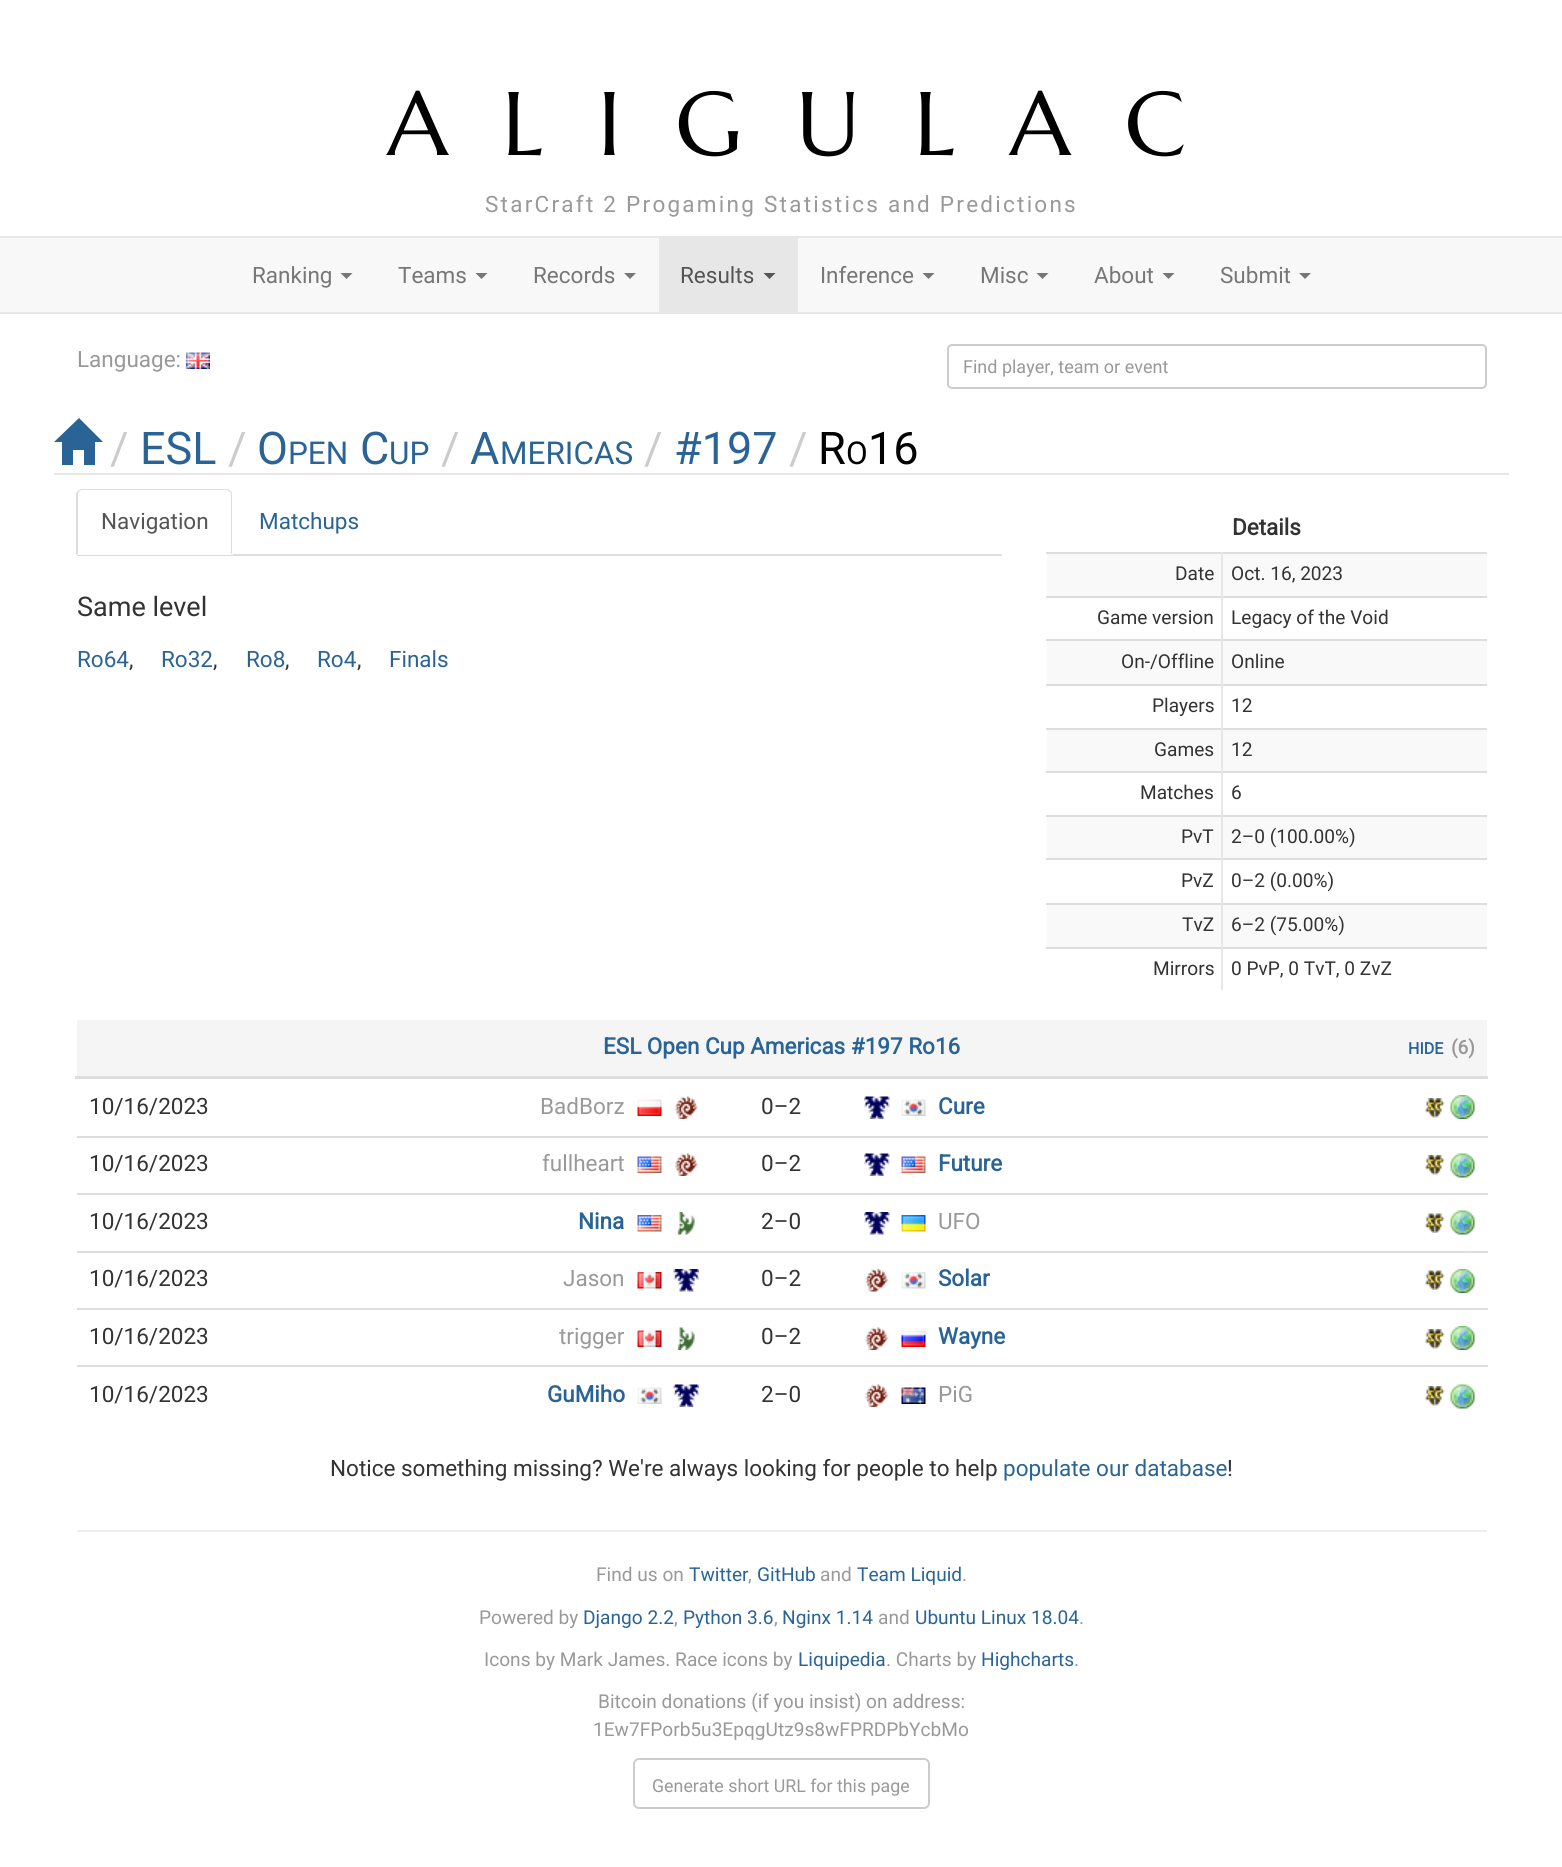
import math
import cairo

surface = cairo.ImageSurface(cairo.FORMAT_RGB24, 1562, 1867)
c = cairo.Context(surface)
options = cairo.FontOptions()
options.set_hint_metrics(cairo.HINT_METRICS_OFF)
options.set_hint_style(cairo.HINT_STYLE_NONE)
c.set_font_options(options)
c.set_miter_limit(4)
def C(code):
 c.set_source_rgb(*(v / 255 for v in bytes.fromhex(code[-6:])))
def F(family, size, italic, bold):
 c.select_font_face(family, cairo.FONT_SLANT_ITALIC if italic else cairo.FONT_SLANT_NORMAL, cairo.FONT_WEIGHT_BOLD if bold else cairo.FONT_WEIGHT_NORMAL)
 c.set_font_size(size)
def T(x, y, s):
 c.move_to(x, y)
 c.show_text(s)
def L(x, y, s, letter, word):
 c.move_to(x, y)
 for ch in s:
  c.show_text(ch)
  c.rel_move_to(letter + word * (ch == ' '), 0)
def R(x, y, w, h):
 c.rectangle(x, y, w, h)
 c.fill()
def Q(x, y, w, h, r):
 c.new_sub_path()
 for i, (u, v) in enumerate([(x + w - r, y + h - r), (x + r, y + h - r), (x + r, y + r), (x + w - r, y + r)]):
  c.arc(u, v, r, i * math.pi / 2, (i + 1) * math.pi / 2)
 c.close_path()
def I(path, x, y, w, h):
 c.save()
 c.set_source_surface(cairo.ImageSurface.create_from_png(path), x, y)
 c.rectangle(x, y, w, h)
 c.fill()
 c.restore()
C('ffffff')
c.paint()
F('Marcellus SC',90,0,0)
C('000000')
L(387,155,'ALIGULAC',54,0)
F('Roboto',22.5,0,0)
C('999999')
L(485,212,'StarCraft 2 Progaming Statistics and Predictions',2.25,0)
C('f8f8f8')
R(0,238,1562,74)
C('e7e7e7')
R(0,236,1562,2)
R(0,312,1562,2)
C('777777')
T(252,283,'Ranking')
c.new_path()
c.move_to(340.5,273)
c.line_to(352.5,273)
c.line_to(346.5,279)
c.close_path()
c.fill()
T(398,283,'Teams')
c.new_path()
c.move_to(475.5,273)
c.line_to(487.5,273)
c.line_to(481.5,279)
c.close_path()
c.fill()
T(533,283,'Records')
c.new_path()
c.move_to(624,273)
c.line_to(636,273)
c.line_to(630,279)
c.close_path()
c.fill()
C('e7e7e7')
R(659,238,139,74)
C('555555')
T(680,283,'Results')
c.new_path()
c.move_to(763.5,273)
c.line_to(775.5,273)
c.line_to(769.5,279)
c.close_path()
c.fill()
C('777777')
T(820,283,'Inference')
c.new_path()
c.move_to(922.5,273)
c.line_to(934.5,273)
c.line_to(928.5,279)
c.close_path()
c.fill()
T(980,283,'Misc')
c.new_path()
c.move_to(1036.5,273)
c.line_to(1048.5,273)
c.line_to(1042.5,279)
c.close_path()
c.fill()
T(1094,283,'About')
c.new_path()
c.move_to(1162.5,273)
c.line_to(1174.5,273)
c.line_to(1168.5,279)
c.close_path()
c.fill()
T(1220,283,'Submit')
c.new_path()
c.move_to(1299,273)
c.line_to(1311,273)
c.line_to(1305,279)
c.close_path()
c.fill()
C('999999')
T(77,367,'Language:')
I('1.png',186,352,24,17)
Q(948,345,538,43,4)
C('cccccc')
c.stroke()
F('Roboto',18,0,0)
C('999999')
T(963,373,'Find player, team or event')
C('e7e7e7')
R(54,473,1455,2)
C('2a6496')
c.new_path()
c.move_to(54,442)
c.line_to(79,418)
c.line_to(103,442)
c.line_to(95,442)
c.line_to(95,465)
c.line_to(84,465)
c.line_to(84,450)
c.line_to(73,450)
c.line_to(73,465)
c.line_to(62,465)
c.line_to(62,442)
c.close_path()
c.fill()
F('Roboto',45,0,0)
C('cccccc')
T(110,464,'/')
C('2a6496')
T(140,464,'ESL')
C('cccccc')
T(228,464,'/')
C('2a6496')
T(257,464,'O')
F('Roboto',31.5,0,0)
T(288,464,'PEN')
F('Roboto',45,0,0)
T(360,464,'C')
F('Roboto',31.5,0,0)
T(389,464,'UP')
F('Roboto',45,0,0)
C('cccccc')
T(441,464,'/')
C('2a6496')
T(470,464,'A')
F('Roboto',31.5,0,0)
T(500,464,'MERICAS')
F('Roboto',45,0,0)
C('cccccc')
T(644,464,'/')
C('2a6496')
T(674,464,'#197')
C('cccccc')
T(789,464,'/')
C('000000')
T(818,464,'R')
F('Roboto',31.5,0,0)
T(846,464,'O')
F('Roboto',45,0,0)
T(868,464,'16')
C('dddddd')
R(77,554,925,2)
C('ffffff')
c.new_path()
c.move_to(83,489)
c.line_to(227,489)
c.curve_to(230.5,489,233,491.5,233,495)
c.line_to(233,555)
c.line_to(77,555)
c.line_to(77,495)
c.curve_to(77,491.5,79.5,489,83,489)
c.close_path()
c.fill()
C('dddddd')
c.new_path()
c.move_to(82,489)
c.curve_to(81,489,79,490,78,491)
c.line_to(79,492)
c.curve_to(80,491,81,490,82,490)
c.line_to(227,490)
c.line_to(230,492)
c.line_to(231,491)
c.curve_to(230,490,228,489,226,489)
c.close_path()
c.fill()
c.new_path()
c.move_to(231,491)
c.curve_to(232,492,232,494,232,495)
c.line_to(232,554)
c.line_to(231,554)
c.line_to(231,495)
c.curve_to(231,494,231,493,230,492)
c.close_path()
c.fill()
c.new_path()
c.move_to(76,555)
c.line_to(76,493)
c.line_to(78,491)
c.line_to(79,492)
c.curve_to(78,493,78,494,78,495)
c.line_to(78,554)
c.close_path()
c.fill()
F('Roboto',22.5,0,0)
C('555555')
T(101,529,'Navigation')
C('2a6496')
T(259,529,'Matchups')
F('Roboto',27,0,0)
C('333333')
T(77,616,'Same level')
F('Roboto',22.5,0,0)
C('2a6496')
T(77,667,'Ro64')
C('333333')
T(129,667,',')
C('2a6496')
T(161,667,'Ro32')
C('333333')
T(213,667,',')
C('2a6496')
T(246,667,'Ro8')
C('333333')
T(285,667,',')
C('2a6496')
T(317,667,'Ro4')
C('333333')
T(357,667,',')
C('2a6496')
T(389,667,'Finals')
F('Roboto',22.5,0,1)
C('333333')
T(1232,535,'Details')
C('f9f9f9')
R(1047,554,174,42)
C('dddddd')
R(1046,552,441,2)
R(1046,596,441,2)
R(1046,639,441,2)
R(1046,684,441,2)
R(1046,728,441,2)
R(1046,771,441,2)
R(1046,815,441,2)
R(1046,858,441,2)
R(1046,903,441,2)
R(1046,947,441,2)
C('e7e7e7')
R(1221,947,2,43)
R(1221,903,2,45)
R(1221,858,2,47)
R(1221,815,2,45)
R(1221,771,2,45)
R(1221,728,2,45)
R(1221,684,2,45)
R(1221,639,2,47)
R(1221,596,2,45)
R(1221,552,2,45)
F('Roboto',19.1,0,0)
C('333333')
T(1175,580,'Date')
C('f9f9f9')
R(1223,554,264,42)
C('333333')
T(1231,580,'Oct. 16, 2023')
T(1097,624,'Game version')
T(1231,624,'Legacy of the Void')
C('f9f9f9')
R(1047,641,174,43)
C('333333')
T(1121,668,'On-/Offline')
C('f9f9f9')
R(1223,641,264,43)
C('333333')
T(1231,668,'Online')
T(1152,712,'Players')
T(1231,712,'12')
C('f9f9f9')
R(1047,730,174,41)
C('333333')
T(1154,756,'Games')
C('f9f9f9')
R(1223,730,264,41)
C('333333')
T(1231,756,'12')
T(1140,799,'Matches')
T(1231,799,'6')
C('f9f9f9')
R(1047,817,174,41)
C('333333')
T(1181,843,'PvT')
C('f9f9f9')
R(1223,817,264,41)
C('333333')
T(1231,843,'2–0 (100.00%)')
T(1181,887,'PvZ')
T(1231,887,'0–2 (0.00%)')
C('f9f9f9')
R(1047,905,174,42)
C('333333')
T(1182,931,'TvZ')
C('f9f9f9')
R(1223,905,264,42)
C('333333')
T(1231,931,'6–2 (75.00%)')
T(1153,975,'Mirrors')
T(1231,975,'0 PvP, 0 TvT, 0 ZvZ')
C('f5f5f5')
R(77,1020,1410,56)
F('Roboto',22.5,0,1)
C('2a6496')
T(603,1054,'ESL Open Cup Americas #197 Ro16')
C('dddddd')
R(75,1076,1413,3)
F('Roboto',16,0,1)
C('2a6496')
T(1408,1054,'HIDE')
F('Roboto',19.1,0,1)
C('999999')
T(1451,1054,'(6)')
F('Roboto',22.5,0,0)
C('333333')
T(89,1114,'10/16/2023')
C('999999')
T(540,1114,'BadBorz')
I('2.png',637,1099,25,17)
I('3.png',674,1096,24,23)
C('333333')
T(761,1114,'0–2')
I('4.png',864,1096,26,23)
I('5.png',901,1099,25,17)
F('Roboto',22.5,0,1)
C('2a6496')
T(938,1114,'Cure')
I('6.png',1425,1098,20,20)
I('7.png',1450,1095,25,24)
C('dddddd')
R(77,1136,1411,2)
I('6.png',1425,1155,20,20)
I('8.png',1450,1153,25,25)
F('Roboto',22.5,0,0)
C('333333')
T(89,1171,'10/16/2023')
C('999999')
T(542,1171,'fullheart')
I('9.png',637,1156,25,17)
I('3.png',674,1153,24,23)
C('333333')
T(761,1171,'0–2')
I('4.png',864,1153,26,23)
I('10.png',901,1156,25,17)
F('Roboto',22.5,0,1)
C('2a6496')
T(938,1171,'Future')
C('dddddd')
R(77,1193,1411,2)
I('11.png',1425,1213,20,20)
I('8.png',1450,1210,25,25)
F('Roboto',22.5,0,0)
C('333333')
T(89,1229,'10/16/2023')
F('Roboto',22.5,0,1)
C('2a6496')
T(578,1229,'Nina')
I('12.png',637,1215,25,17)
I('13.png',677,1212,18,23)
F('Roboto',22.5,0,0)
C('333333')
T(761,1229,'2–0')
I('14.png',864,1212,26,23)
I('15.png',901,1215,25,17)
C('999999')
T(938,1229,'UFO')
C('dddddd')
R(77,1251,1411,2)
I('11.png',1425,1270,20,20)
I('7.png',1450,1269,25,24)
C('333333')
T(89,1286,'10/16/2023')
C('999999')
T(563,1286,'Jason')
I('16.png',637,1272,25,17)
I('17.png',673,1269,26,23)
C('333333')
T(761,1286,'0–2')
I('18.png',865,1269,24,23)
I('19.png',901,1272,25,17)
F('Roboto',22.5,0,1)
C('2a6496')
T(938,1286,'Solar')
C('dddddd')
R(77,1308,1411,2)
I('6.png',1425,1329,20,20)
I('7.png',1450,1326,25,24)
F('Roboto',22.5,0,0)
C('333333')
T(89,1344,'10/16/2023')
C('999999')
T(559,1344,'trigger')
I('20.png',637,1330,25,17)
I('21.png',677,1327,18,23)
C('333333')
T(761,1344,'0–2')
I('22.png',865,1327,24,23)
I('23.png',901,1330,25,17)
F('Roboto',22.5,0,1)
C('2a6496')
T(938,1344,'Wayne')
C('dddddd')
R(77,1365,1411,2)
I('6.png',1425,1386,20,20)
I('8.png',1450,1384,25,25)
F('Roboto',22.5,0,0)
C('333333')
T(89,1402,'10/16/2023')
F('Roboto',22.5,0,1)
C('2a6496')
T(547,1402,'GuMiho')
I('24.png',637,1387,25,17)
I('25.png',673,1384,26,23)
F('Roboto',22.5,0,0)
C('333333')
T(761,1402,'2–0')
I('22.png',865,1384,24,23)
I('26.png',901,1387,25,17)
C('999999')
T(938,1402,'PiG')
C('333333')
T(330,1476,'Notice something missing? We\'re always looking for people to help')
C('2a6496')
T(1003,1476,'populate our database')
C('333333')
T(1227,1476,'!')
C('eeeeee')
R(77,1530,1410,2)
F('Roboto',19.1,0,0)
C('999999')
T(596,1581,'Find us on')
C('2a6496')
T(689,1581,'Twitter')
C('999999')
T(748,1581,',')
C('2a6496')
T(757,1581,'GitHub')
C('999999')
T(820,1581,'and')
C('2a6496')
T(857,1581,'Team Liquid')
C('999999')
T(962,1581,'.')
T(479,1624,'Powered by')
C('2a6496')
T(583,1624,'Django 2.2')
C('999999')
T(674,1624,',')
C('2a6496')
T(683,1624,'Python 3.6')
C('999999')
T(774,1624,',')
C('2a6496')
T(782,1624,'Nginx 1.14')
C('999999')
T(878,1624,'and')
C('2a6496')
T(915,1624,'Ubuntu Linux 18.04')
C('999999')
T(1079,1624,'.')
T(484,1666,'Icons by Mark James. Race icons by')
C('2a6496')
T(798,1666,'Liquipedia')
C('999999')
T(886,1666,'. Charts by')
C('2a6496')
T(981,1666,'Highcharts')
C('999999')
T(1074,1666,'.')
T(598,1708,'Bitcoin donations (if you insist) on address:')
T(593,1736,'1Ew7FPorb5u3EpqgUtz9s8wFPRDPbYcbMo')
Q(634,1759,295,49,5)
C('cccccc')
c.stroke()
F('Roboto',17.8,0,0)
C('999999')
T(652,1792,'Generate short URL for this page')
surface.write_to_png('o.png')
